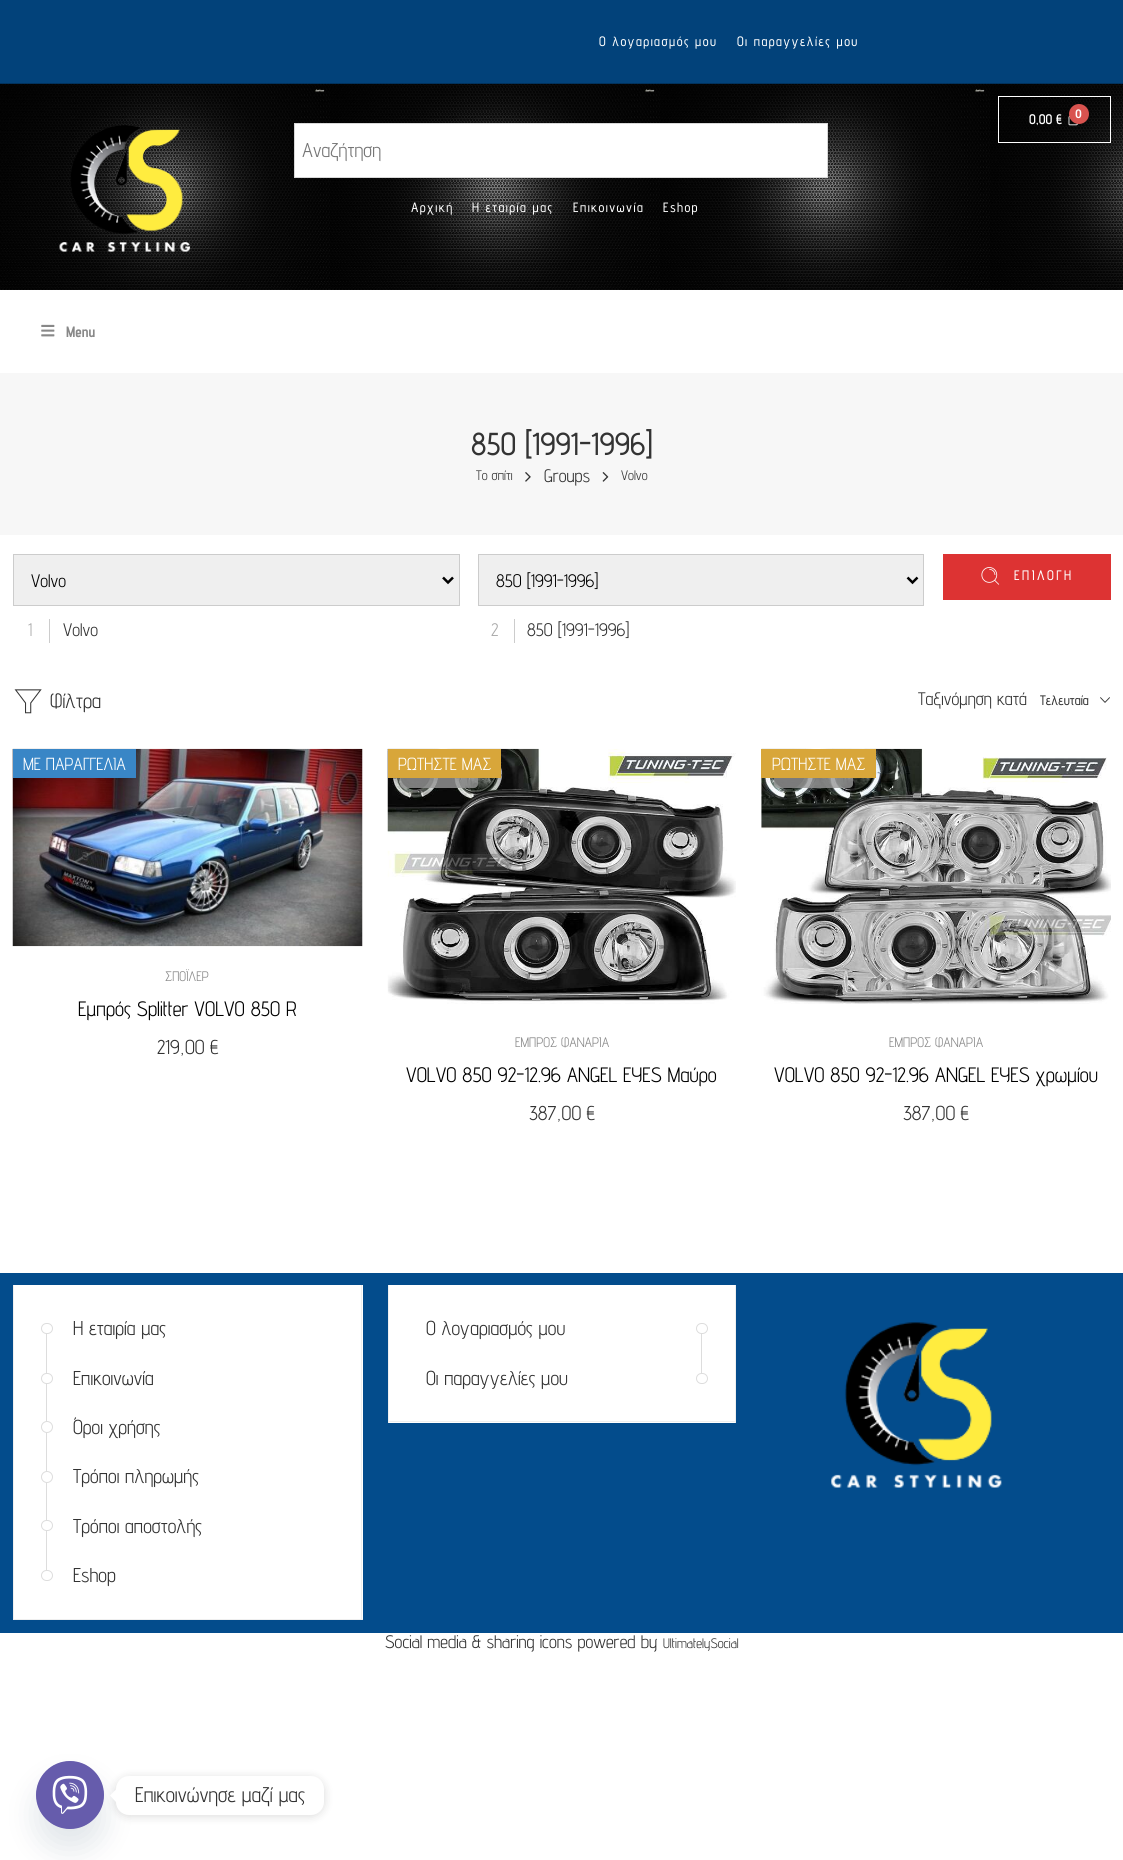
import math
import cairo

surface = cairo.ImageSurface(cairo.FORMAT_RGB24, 1123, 1860)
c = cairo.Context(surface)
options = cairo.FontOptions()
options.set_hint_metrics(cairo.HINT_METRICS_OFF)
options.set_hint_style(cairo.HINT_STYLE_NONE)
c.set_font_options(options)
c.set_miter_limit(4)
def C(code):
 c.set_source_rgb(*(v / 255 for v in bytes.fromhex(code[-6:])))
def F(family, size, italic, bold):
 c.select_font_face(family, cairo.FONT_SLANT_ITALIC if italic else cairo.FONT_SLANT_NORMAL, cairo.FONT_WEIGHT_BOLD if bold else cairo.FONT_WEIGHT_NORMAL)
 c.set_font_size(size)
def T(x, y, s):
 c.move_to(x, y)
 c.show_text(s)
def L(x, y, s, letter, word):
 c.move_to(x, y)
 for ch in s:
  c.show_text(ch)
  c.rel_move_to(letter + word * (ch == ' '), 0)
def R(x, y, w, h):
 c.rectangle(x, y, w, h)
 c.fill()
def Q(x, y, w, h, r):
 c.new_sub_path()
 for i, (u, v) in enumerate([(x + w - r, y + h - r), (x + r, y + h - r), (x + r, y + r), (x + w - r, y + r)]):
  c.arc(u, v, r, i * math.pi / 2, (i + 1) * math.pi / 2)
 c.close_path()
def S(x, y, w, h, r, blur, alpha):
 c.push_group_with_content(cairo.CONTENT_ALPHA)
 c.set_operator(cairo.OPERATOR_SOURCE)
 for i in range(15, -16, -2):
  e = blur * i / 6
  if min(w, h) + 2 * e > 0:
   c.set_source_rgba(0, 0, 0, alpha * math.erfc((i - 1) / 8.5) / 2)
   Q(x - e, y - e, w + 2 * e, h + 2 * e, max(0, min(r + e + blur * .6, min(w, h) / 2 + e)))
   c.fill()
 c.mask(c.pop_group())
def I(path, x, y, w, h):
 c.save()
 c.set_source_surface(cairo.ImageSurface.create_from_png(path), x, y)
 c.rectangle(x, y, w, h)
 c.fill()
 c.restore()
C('ffffff')
c.paint()
C('02427a')
R(0,0,1123,84)
F('Advent Pro Medium',13.5,0,0)
C('ffffff')
L(599,46,'Ο λογαριασμός μου',1.4,0)
L(737,46,'Οι παραγγελίες μου',1.4,0)
I('1.png',0,83,1123,207)
c.rectangle(998.5,96.5,112,46)
c.set_line_width(1)
c.stroke()
F('Advent Pro SemiBold',13.75,0,0)
T(1029,124,'0,00 €')
I('2.png',1068,116,10,10)
C('d9534f')
c.arc(1079,114,10,0,2 * math.pi)
c.fill()
F('Roboto SemiBold',12,0,0)
C('ffffff')
T(1075,118,'0')
I('3.png',59,125,132,127)
c.rectangle(294.5,123.5,533,54)
c.fill_preserve()
C('d8d8d8')
c.stroke()
F('Advent Pro',20,0,0)
C('757575')
T(302,157,'Αναζήτηση')
F('Advent Pro Medium',13.5,0,0)
C('ffffff')
L(411,212,'Αρχική',1.4,0)
L(472,212,'Η εταιρία μας',1.4,0)
L(573,212,'Επικοινωνία',1.4,0)
L(663,212,'Eshop',1.4,0)
I('4.png',41,324,14,13)
F('Advent Pro',15,0,1)
C('888888')
T(66,337,'Menu')
C('f7f7f7')
R(0,373,1123,162)
F('Advent Pro Medium',31.75,0,0)
C('333333')
T(471,455,'850 [1991-1996]')
F('Advent Pro',13.75,0,0)
T(476,480,'Το σπίτι')
I('5.png',525,472,6,10)
F('Advent Pro',18.1,0,0)
T(544,482,'Groups')
I('6.png',602,472,7,10)
F('Advent Pro',13.75,0,0)
T(621,480,'Volvo')
C('efefef')
c.rectangle(13.5,554.5,446,51)
c.fill_preserve()
C('cccccc')
c.stroke()
c.new_path()
c.move_to(443,577.5)
c.line_to(448,582.5)
c.line_to(453,577.5)
C('000000')
c.set_line_width(2.5)
c.stroke()
F('Advent Pro',18.1,0,0)
T(31,587,'Volvo')
C('cccccc')
R(49,619,1,24)
C('aaaaaa')
T(28,636,'1')
C('333333')
T(63,636,'Volvo')
C('efefef')
c.rectangle(478.5,554.5,445,51)
c.fill_preserve()
C('cccccc')
c.set_line_width(1)
c.stroke()
c.new_path()
c.move_to(907.5,577.5)
c.line_to(912.5,582.5)
c.line_to(917.5,577.5)
C('000000')
c.set_line_width(2.5)
c.stroke()
T(496,587,'850 [1991-1996]')
C('cccccc')
R(514,619,1,24)
C('aaaaaa')
T(491,636,'2')
C('333333')
T(527,636,'850 [1991-1996]')
C('dd3333')
R(943,554,168,46)
I('7.png',981,567,19,18)
F('Advent Pro Medium',13.75,0,0)
C('ffffff')
L(1014,580,'ΕΠΙΛΟΓΗ',2.5,0)
I('8.png',14,689,28,25)
F('Advent Pro',20.8,0,0)
C('333333')
T(50,708,'Φίλτρα')
F('Advent Pro',18.1,0,0)
T(918,705,'Ταξινόμηση κατά')
F('Advent Pro Medium',13.75,0,0)
T(1040,705,'Τελευταία')
I('9.png',1100,697,10,6)
I('10.png',12,748,351,199)
C('3986c6')
R(13,749,123,29)
F('Advent Pro',17.5,0,0)
C('ffffff')
T(23,770,'ΜΕ ΠΑΡΑΓΓΕΛΙΑ')
F('Advent Pro',13.75,0,0)
C('888888')
T(165,981,'ΣΠΟΪΛΕΡ')
F('Advent Pro',20.8,0,0)
C('000000')
T(78,1016,'Εμπρός Splitter VOLVO 850 R')
F('Advent Pro',20,0,0)
C('333333')
T(157,1054,'219,00 €')
I('11.png',387,748,349,256)
c.set_source_rgba(0.6,0.6,0.6,0.8)
Q(400,761,78,27,4)
c.fill()
C('d8a63a')
R(388,749,113,29)
F('Advent Pro',17.5,0,0)
C('ffffff')
T(398,770,'ΡΩΤΗΣΤΕ ΜΑΣ')
F('Advent Pro',13.75,0,0)
C('888888')
T(515,1047,'ΕΜΠΡΟΣ ΦΑΝΑΡΙΑ')
F('Advent Pro',20.8,0,0)
C('000000')
T(406,1082,'VOLVO 850 92-12.96 ANGEL EYES Μαύρο')
F('Advent Pro',20,0,0)
C('333333')
T(529,1120,'387,00 €')
I('12.png',761,748,350,256)
c.set_source_rgba(0.6,0.6,0.6,0.8)
Q(774,761,79,27,4)
c.fill()
C('d8a63a')
R(761,749,115,29)
F('Advent Pro',17.5,0,0)
C('ffffff')
T(772,770,'ΡΩΤΗΣΤΕ ΜΑΣ')
F('Advent Pro',13.75,0,0)
C('888888')
T(889,1047,'ΕΜΠΡΟΣ ΦΑΝΑΡΙΑ')
F('Advent Pro',20.8,0,0)
C('000000')
T(774,1082,'VOLVO 850 92-12.96 ANGEL EYES χρωμίου')
F('Advent Pro',20,0,0)
C('333333')
T(903,1120,'387,00 €')
C('034c8c')
R(0,1273,1123,360)
C('ffffff')
R(14,1285,349,334)
C('efefef')
R(361,1285,1,335)
R(13,1619,350,1)
R(13,1285,1,335)
C('dddddd')
R(46,1326,1,248)
C('ffffff')
Q(41.5,1323.5,11,10,5)
c.fill_preserve()
C('dddddd')
c.set_line_width(1)
c.stroke()
C('333333')
T(73,1335,'Η εταιρία μας')
C('ffffff')
Q(41.5,1373.5,11,10,5)
c.fill_preserve()
C('dddddd')
c.stroke()
C('333333')
T(73,1385,'Επικοινωνία')
C('ffffff')
c.new_path()
c.arc(47,1427,5.5,0,2 * math.pi)
c.fill_preserve()
C('dddddd')
c.stroke()
C('333333')
T(73,1434,'Όροι χρήσης')
C('ffffff')
c.new_path()
c.arc(47,1477,5.5,0,2 * math.pi)
c.fill_preserve()
C('dddddd')
c.stroke()
C('333333')
T(73,1483,'Τρόποι πληρωμής')
C('ffffff')
Q(41.5,1520.5,11,10,5)
c.fill_preserve()
C('dddddd')
c.stroke()
C('333333')
T(73,1533,'Τρόποι αποστολής')
C('ffffff')
Q(41.5,1570.5,11,10,5)
c.fill_preserve()
C('dddddd')
c.stroke()
C('333333')
T(73,1582,'Eshop')
C('ffffff')
R(389,1285,346,138)
C('efefef')
R(735,1285,1,138)
R(388,1421,348,1)
R(388,1285,1,138)
C('333333')
T(426,1335,'Ο λογαριασμός μου')
C('dddddd')
R(701,1326,1,50)
C('ffffff')
Q(696.5,1323.5,11,10,5)
c.fill_preserve()
C('dddddd')
c.stroke()
C('333333')
T(426,1385,'Οι παραγγελίες μου')
C('ffffff')
Q(696.5,1373.5,11,10,5)
c.fill_preserve()
C('dddddd')
c.stroke()
I('13.png',831,1322,171,166)
F('Advent Pro',18.1,0,0)
C('333333')
T(385,1648,'Social media & sharing icons powered by')
F('Advent Pro',13.75,0,0)
T(663,1648,'UltimatelySocial')
C('49687e')
S(36,1781,68,68,34,15,.16)
C('665cac')
c.arc(70,1795,34,0,2 * math.pi)
c.fill()
I('14.png',36,1761,68,68)
C('000000')
S(116,1778,208,38,13,5,.15)
C('ffffff')
Q(116,1776,208,39,13)
c.fill()
c.new_path()
c.move_to(116,1789.5)
c.line_to(116,1802)
c.line_to(110,1795.5)
c.close_path()
c.fill()
F('Advent Pro',21.25,0,0)
C('333333')
T(135,1802,'Επικοινώνησε μαζί μας')
surface.write_to_png('o.png')
